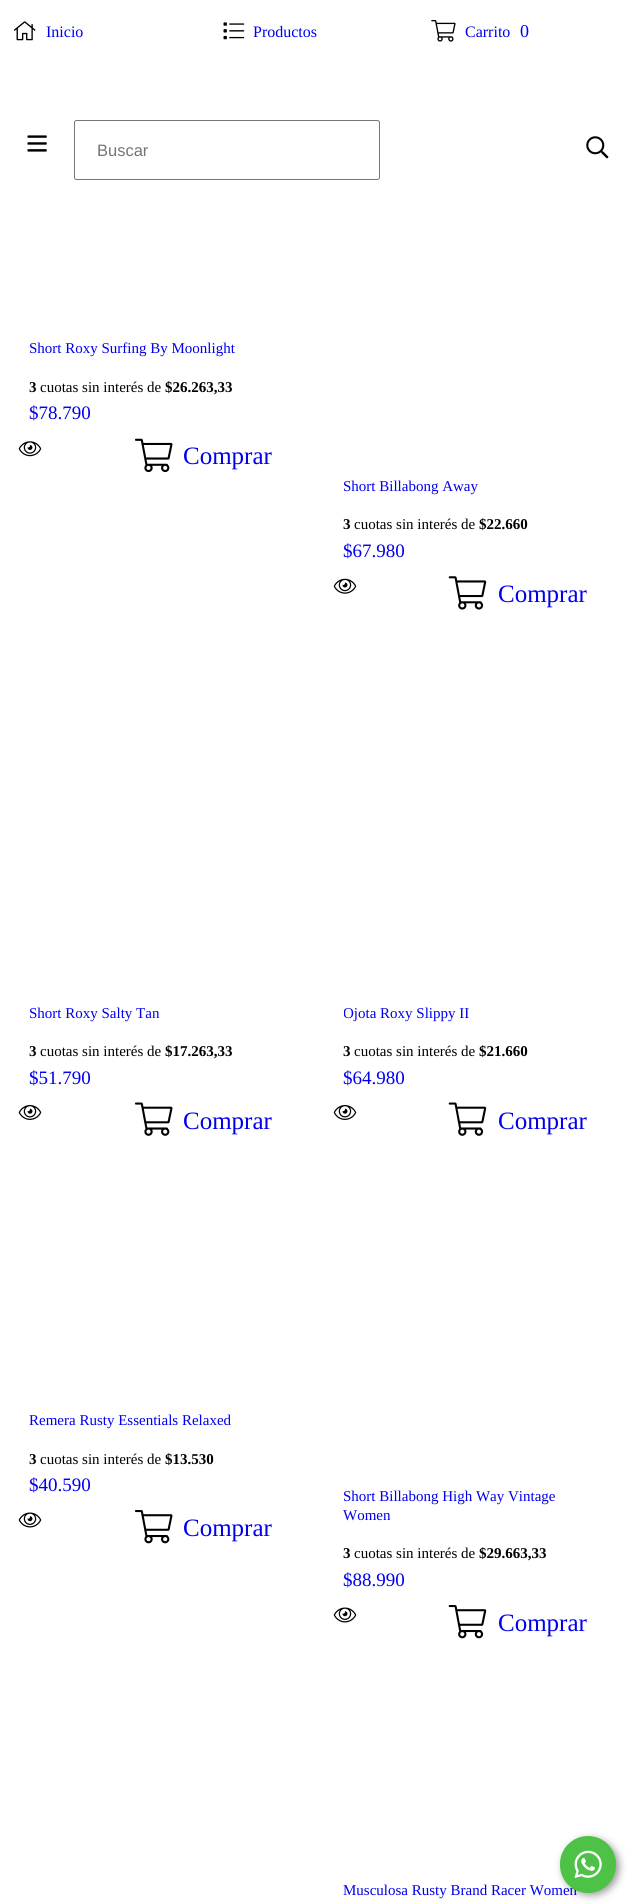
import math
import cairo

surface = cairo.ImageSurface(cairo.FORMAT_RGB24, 628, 1904)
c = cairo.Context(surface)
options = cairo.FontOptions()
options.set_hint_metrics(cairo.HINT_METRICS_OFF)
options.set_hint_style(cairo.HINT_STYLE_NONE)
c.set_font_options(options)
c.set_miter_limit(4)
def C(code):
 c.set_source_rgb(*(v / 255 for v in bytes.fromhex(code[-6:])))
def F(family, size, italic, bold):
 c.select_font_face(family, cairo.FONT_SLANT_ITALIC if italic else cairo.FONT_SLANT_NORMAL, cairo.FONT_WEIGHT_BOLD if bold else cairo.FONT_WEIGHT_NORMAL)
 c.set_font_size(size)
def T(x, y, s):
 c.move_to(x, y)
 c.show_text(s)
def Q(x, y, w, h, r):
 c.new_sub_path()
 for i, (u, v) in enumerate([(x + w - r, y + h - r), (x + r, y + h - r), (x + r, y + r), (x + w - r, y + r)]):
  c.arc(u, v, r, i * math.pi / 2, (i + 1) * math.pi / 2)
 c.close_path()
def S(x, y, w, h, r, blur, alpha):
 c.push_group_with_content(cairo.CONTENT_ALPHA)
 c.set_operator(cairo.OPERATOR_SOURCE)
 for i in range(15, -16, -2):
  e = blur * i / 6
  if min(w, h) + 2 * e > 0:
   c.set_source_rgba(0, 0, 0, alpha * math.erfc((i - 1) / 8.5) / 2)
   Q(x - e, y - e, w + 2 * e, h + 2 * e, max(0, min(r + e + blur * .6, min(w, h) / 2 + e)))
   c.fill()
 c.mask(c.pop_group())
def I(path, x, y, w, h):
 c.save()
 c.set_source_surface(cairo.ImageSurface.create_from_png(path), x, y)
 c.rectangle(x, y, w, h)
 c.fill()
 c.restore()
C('ffffff')
c.paint()
I('1.png',13,21,23,20)
F('Liberation Serif',16,0,0)
C('0000ee')
T(46,37,'Inicio')
I('2.png',223,22,22,18)
T(253,37,'Productos')
I('3.png',431,20,25,22)
T(465,37,'Carrito')
F('Liberation Serif',18,0,0)
T(520,37,'0')
I('4.png',27,135,20,17)
Q(74.5,120.5,305,59,2)
C('767676')
c.set_line_width(1)
c.stroke()
F('Liberation Sans',16.5,0,0)
C('757575')
T(97,156,'Buscar')
I('5.png',586,136,23,23)
F('Liberation Serif',15,0,0)
C('0000ee')
T(29,353,'Short Roxy Surfing By Moonlight')
F('Liberation Serif',15,0,1)
C('000000')
T(29,392,'3')
F('Liberation Serif',15,0,0)
T(40,392,'cuotas sin interés de')
F('Liberation Serif',15,0,1)
T(165,392,'$26.263,33')
F('Liberation Serif',19,0,0)
C('0000ee')
T(29,419,'$78.790')
I('6.png',18,441,24,16)
I('7.png',135,438,38,35)
F('Liberation Serif',25,0,0)
T(183,464,'Comprar')
F('Liberation Serif',15,0,0)
T(343,491,'Short Billabong Away')
F('Liberation Serif',15,0,1)
C('000000')
T(343,529,'3')
F('Liberation Serif',15,0,0)
T(354,529,'cuotas sin interés de')
F('Liberation Serif',15,0,1)
T(479,529,'$22.660')
F('Liberation Serif',19,0,0)
C('0000ee')
T(343,557,'$67.980')
I('8.png',333,578,24,16)
I('9.png',448,576,39,34)
F('Liberation Serif',25,0,0)
T(498,602,'Comprar')
F('Liberation Serif',15,0,0)
T(29,1018,'Short Roxy Salty Tan')
F('Liberation Serif',15,0,1)
C('000000')
T(29,1056,'3')
F('Liberation Serif',15,0,0)
T(40,1056,'cuotas sin interés de')
F('Liberation Serif',15,0,1)
T(165,1056,'$17.263,33')
F('Liberation Serif',19,0,0)
C('0000ee')
T(29,1084,'$51.790')
I('10.png',18,1105,24,15)
I('11.png',135,1102,38,34)
F('Liberation Serif',25,0,0)
T(183,1129,'Comprar')
c.save()
c.rectangle(344,1004,256,19)
c.clip()
F('Liberation Serif',15,0,0)
T(343,1018,'Ojota Roxy Slippy II')
c.restore()
F('Liberation Serif',15,0,1)
C('000000')
T(343,1056,'3')
F('Liberation Serif',15,0,0)
T(354,1056,'cuotas sin interés de')
F('Liberation Serif',15,0,1)
T(479,1056,'$21.660')
F('Liberation Serif',19,0,0)
C('0000ee')
T(343,1084,'$64.980')
I('10.png',333,1105,24,15)
I('12.png',448,1102,39,34)
F('Liberation Serif',25,0,0)
T(498,1129,'Comprar')
F('Liberation Serif',15,0,0)
T(29,1425,'Remera Rusty Essentials Relaxed')
F('Liberation Serif',15,0,1)
C('000000')
T(29,1464,'3')
F('Liberation Serif',15,0,0)
T(40,1464,'cuotas sin interés de')
F('Liberation Serif',15,0,1)
T(165,1464,'$13.530')
F('Liberation Serif',19,0,0)
C('0000ee')
T(29,1491,'$40.590')
I('13.png',18,1512,24,16)
I('14.png',135,1510,38,34)
F('Liberation Serif',25,0,0)
T(183,1536,'Comprar')
F('Liberation Serif',15,0,0)
T(343,1501,'Short Billabong High Way Vintage')
T(343,1520,'Women')
F('Liberation Serif',15,0,1)
C('000000')
T(343,1558,'3')
F('Liberation Serif',15,0,0)
T(354,1558,'cuotas sin interés de')
F('Liberation Serif',15,0,1)
T(479,1558,'$29.663,33')
F('Liberation Serif',19,0,0)
C('0000ee')
T(343,1586,'$88.990')
I('13.png',333,1607,24,16)
I('15.png',448,1605,39,34)
F('Liberation Serif',25,0,0)
T(498,1631,'Comprar')
F('Liberation Serif',15,0,0)
T(343,1895,'Musculosa Rusty Brand Racer Women')
C('000000')
S(563,1839,56,56,28,4,.4)
C('4dc247')
Q(560,1836,56,57,28)
c.fill()
I('16.png',574,1850,28,28)
surface.write_to_png('o.png')
